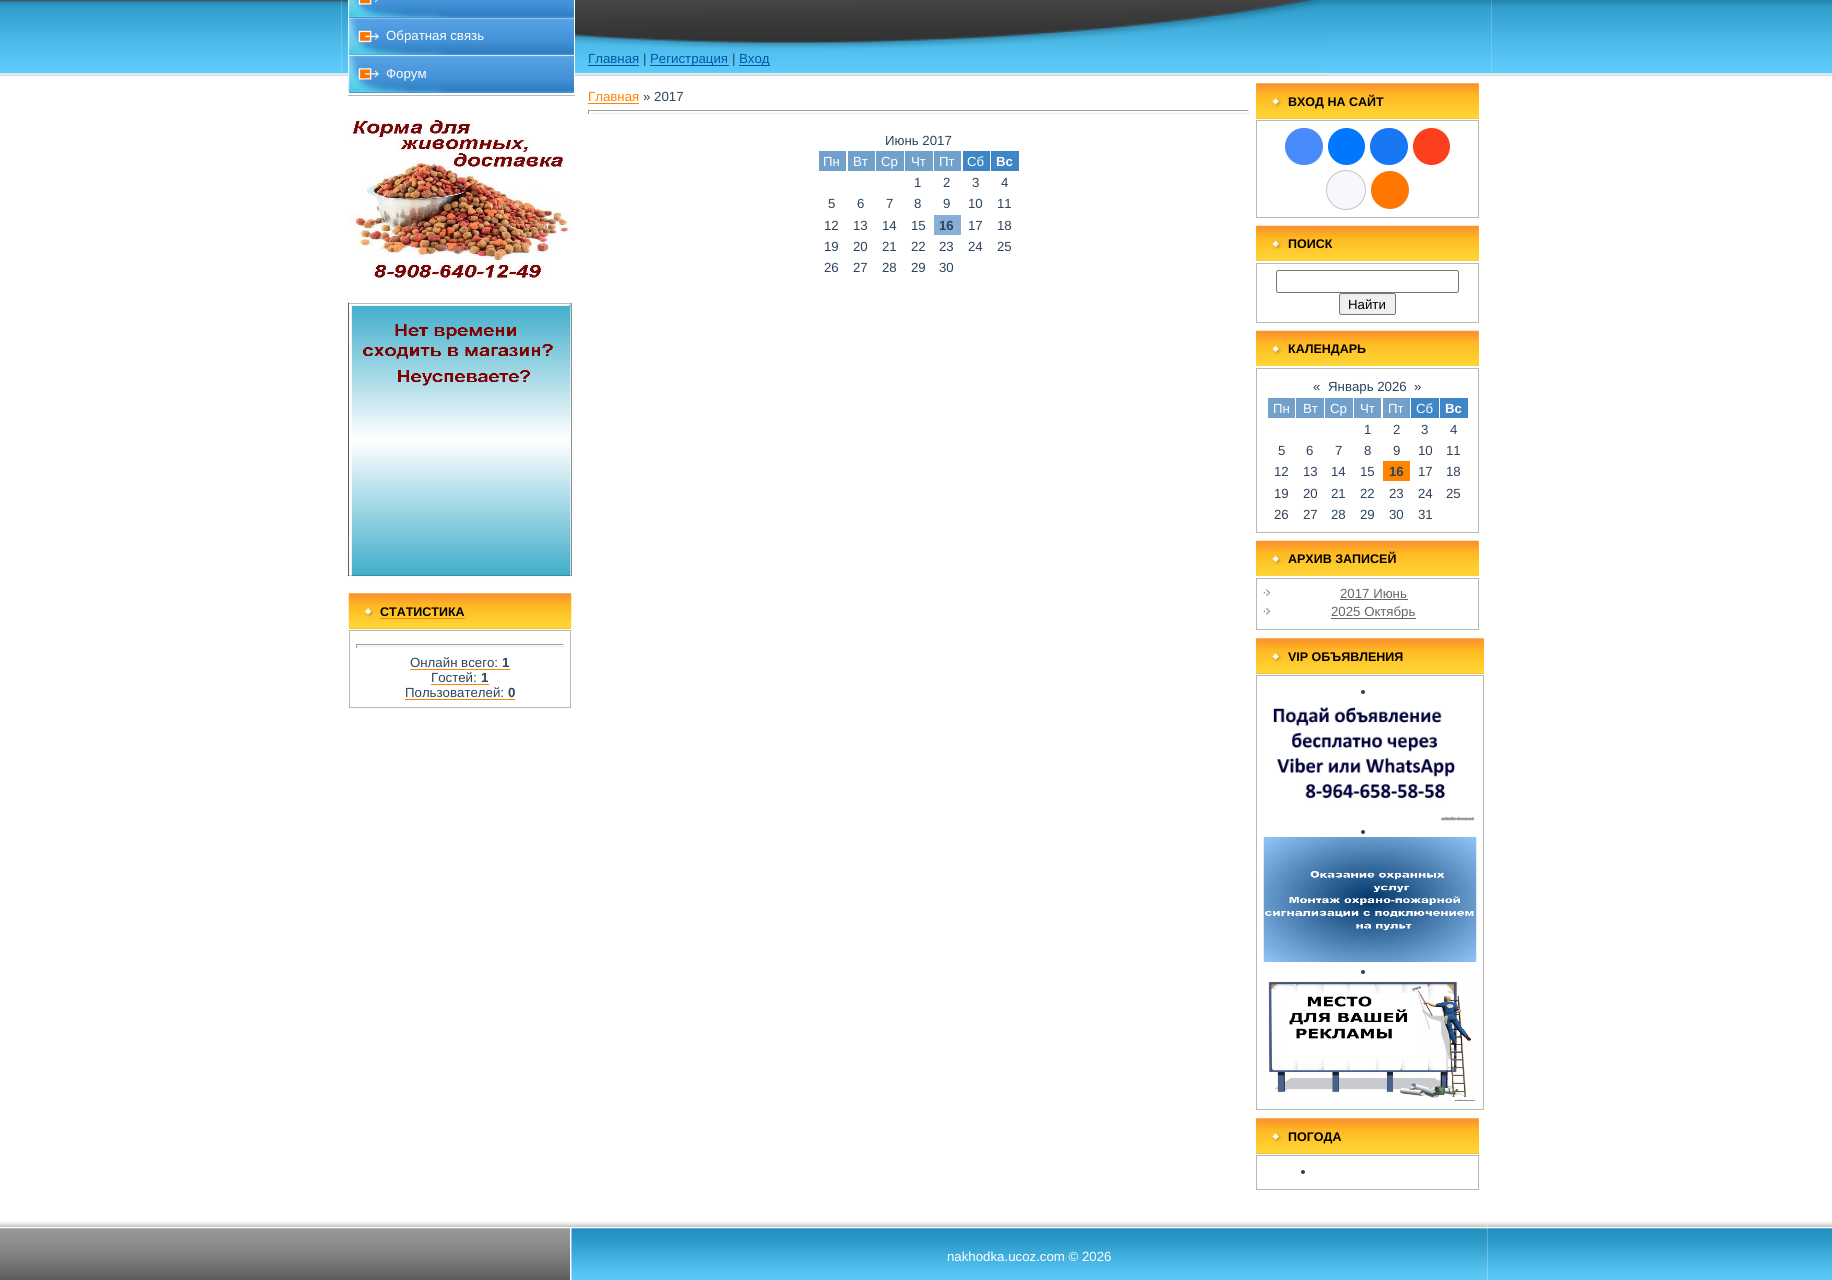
import math
import cairo

surface = cairo.ImageSurface(cairo.FORMAT_RGB24, 1832, 1280)
c = cairo.Context(surface)
options = cairo.FontOptions()
options.set_hint_metrics(cairo.HINT_METRICS_OFF)
options.set_hint_style(cairo.HINT_STYLE_NONE)
c.set_font_options(options)
c.set_miter_limit(4)
def C(code):
 c.set_source_rgb(*(v / 255 for v in bytes.fromhex(code[-6:])))
def F(family, size, italic, bold):
 c.select_font_face(family, cairo.FONT_SLANT_ITALIC if italic else cairo.FONT_SLANT_NORMAL, cairo.FONT_WEIGHT_BOLD if bold else cairo.FONT_WEIGHT_NORMAL)
 c.set_font_size(size)
def T(x, y, s):
 c.move_to(x, y)
 c.show_text(s)
def R(x, y, w, h):
 c.rectangle(x, y, w, h)
 c.fill()
def Q(x, y, w, h, r):
 c.new_sub_path()
 for i, (u, v) in enumerate([(x + w - r, y + h - r), (x + r, y + h - r), (x + r, y + r), (x + w - r, y + r)]):
  c.arc(u, v, r, i * math.pi / 2, (i + 1) * math.pi / 2)
 c.close_path()
def I(path, x, y, w, h):
 c.save()
 c.set_source_surface(cairo.ImageSurface.create_from_png(path), x, y)
 c.rectangle(x, y, w, h)
 c.fill()
 c.restore()
C('ffffff')
c.paint()
I('1.png',0,0,342,76)
I('2.png',341,0,7,76)
C('b8b8b8')
R(348,95,227,1)
C('4593d8')
R(349,0,225,18)
I('3.png',348,0,226,17)
R(349,19,225,36)
I('4.png',348,18,226,37)
F('Liberation Sans',13.25,0,0)
C('ffffff')
T(386,40,'Обратная связь')
C('4593d8')
R(349,56,225,37)
I('5.png',348,55,226,37)
C('ffffff')
T(386,78,'Форум')
I('6.png',349,117,224,165)
I('7.png',347,302,226,275)
C('fdb732')
R(349,628,222,1)
I('8.png',348,593,224,36)
F('Liberation Sans',12.5,0,1)
C('000000')
T(380,616,'СТАТИСТИКА')
C('ff8400')
R(380,618,85,1)
c.rectangle(349.5,630.5,221,77)
C('b8b8b8')
c.set_line_width(1)
c.stroke()
C('9f9f9f')
R(356,644,208,1)
C('eeeeee')
R(563,644,1,4)
R(356,646,208,1)
C('9f9f9f')
R(356,644,1,4)
F('Liberation Sans',13.25,0,0)
C('2d435b')
T(410,667,'Онлайн всего:')
C('ff8400')
R(410,669,100,1)
F('Liberation Sans',13.25,0,1)
C('2d435b')
T(502,667,'1')
F('Liberation Sans',13.25,0,0)
T(431,682,'Гостей:')
C('ff8400')
R(431,684,58,1)
F('Liberation Sans',13.25,0,1)
C('2d435b')
T(481,682,'1')
F('Liberation Sans',13.25,0,0)
T(405,697,'Пользователей:')
C('ff8400')
R(405,699,110,1)
F('Liberation Sans',13.25,0,1)
C('2d435b')
T(508,697,'0')
I('9.png',575,0,917,76)
I('10.png',575,0,750,76)
F('Liberation Sans',13.25,0,0)
C('0057a4')
T(588,63,'Главная')
R(588,65,51,1)
C('2d435b')
T(643,63,'|')
C('0057a4')
R(650,65,79,1)
T(650,63,'Регистрация')
C('2d435b')
T(732,63,'|')
C('0057a4')
R(739,65,31,1)
T(739,63,'Вход')
C('ff8400')
T(588,101,'Главная')
R(588,103,51,1)
C('2d435b')
T(643,101,'» 2017')
C('9f9f9f')
R(588,110,661,1)
C('eeeeee')
R(1248,110,1,4)
R(588,113,661,1)
C('9f9f9f')
R(588,110,1,4)
C('2d435b')
T(885,145,'Июнь 2017')
C('71a0ca')
R(819,151,27,20)
C('ffffff')
T(823,166,'Пн')
C('71a0ca')
R(848,151,27,20)
C('ffffff')
T(853,166,'Вт')
C('71a0ca')
R(876,151,28,20)
C('ffffff')
T(881,166,'Ср')
C('71a0ca')
R(905,151,28,20)
C('ffffff')
T(911,166,'Чт')
C('71a0ca')
R(934,151,27,20)
C('ffffff')
T(939,166,'Пт')
C('3e86c6')
R(963,151,27,20)
C('ffffff')
T(967,166,'Сб')
C('3e86c6')
R(991,151,28,20)
F('Liberation Sans',13.25,0,1)
C('ffffff')
T(996,166,'Вс')
F('Liberation Sans',13.25,0,0)
C('2d435b')
T(914,187,'1')
T(943,187,'2')
T(972,187,'3')
T(1001,187,'4')
T(828,208,'5')
T(857,208,'6')
T(886,208,'7')
T(914,208,'8')
T(943,208,'9')
T(968,208,'10')
T(997,208,'11')
T(824,230,'12')
T(853,230,'13')
T(882,230,'14')
T(911,230,'15')
C('8aafd6')
R(934,215,27,20)
F('Liberation Sans',13.25,0,1)
C('2d435b')
T(939,230,'16')
F('Liberation Sans',13.25,0,0)
T(968,230,'17')
T(997,230,'18')
T(824,251,'19')
T(853,251,'20')
T(882,251,'21')
T(911,251,'22')
T(939,251,'23')
T(968,251,'24')
T(997,251,'25')
T(824,272,'26')
T(853,272,'27')
T(882,272,'28')
T(911,272,'29')
T(939,272,'30')
C('fdb732')
R(1256,84,223,35)
I('11.png',1256,83,223,36)
F('Liberation Sans',12.5,0,1)
C('000000')
T(1288,106,'ВХОД НА САЙТ')
c.rectangle(1256.5,120.5,222,97)
C('b8b8b8')
c.stroke()
C('498bfa')
Q(1285,128,38,37,18.5)
c.fill()
C('0077ff')
c.arc(1346.5,146.5,18.5,0,2 * math.pi)
c.fill()
C('1877f2')
Q(1370,128,38,37,18.5)
c.fill()
C('fc3f1d')
c.arc(1431.5,146.5,18.5,0,2 * math.pi)
c.fill()
C('f8f8fc')
c.arc(1346,190,19.5,0,2 * math.pi)
c.fill_preserve()
C('c4c4c4')
c.stroke()
C('ff7700')
c.arc(1390,190,19,0,2 * math.pi)
c.fill()
C('fdb732')
R(1256,226,223,35)
I('12.png',1256,225,223,36)
C('000000')
T(1288,248,'ПОИСК')
c.rectangle(1256.5,263.5,222,59)
C('b8b8b8')
c.stroke()
Q(1276.5,270.5,182,22,2)
C('767676')
c.stroke()
C('efefef')
Q(1339.5,293.5,56,21,2)
c.fill_preserve()
C('767676')
c.stroke()
F('Liberation Sans',13.25,0,0)
C('000000')
T(1348,309,'Найти')
C('fdb732')
R(1256,331,223,35)
I('12.png',1256,330,223,36)
F('Liberation Sans',12.5,0,1)
C('000000')
T(1288,353,'КАЛЕНДАРЬ')
c.rectangle(1256.5,368.5,222,164)
C('b8b8b8')
c.stroke()
F('Liberation Sans',13.25,0,0)
C('2d435b')
T(1313,391,'«')
T(1328,391,'Январь 2026')
T(1414,391,'»')
C('71a0ca')
R(1268,398,27,20)
C('ffffff')
T(1273,413,'Пн')
C('71a0ca')
R(1296,398,28,20)
C('ffffff')
T(1303,413,'Вт')
C('71a0ca')
R(1325,398,28,20)
C('ffffff')
T(1330,413,'Ср')
C('71a0ca')
R(1354,398,27,20)
C('ffffff')
T(1360,413,'Чт')
C('71a0ca')
R(1383,398,27,20)
C('ffffff')
T(1388,413,'Пт')
C('3e86c6')
R(1411,398,28,20)
C('ffffff')
T(1416,413,'Сб')
C('3e86c6')
R(1440,398,28,20)
F('Liberation Sans',13.25,0,1)
C('ffffff')
T(1445,413,'Вс')
F('Liberation Sans',13.25,0,0)
C('2d435b')
T(1364,434,'1')
T(1393,434,'2')
T(1421,434,'3')
T(1450,434,'4')
T(1278,455,'5')
T(1306,455,'6')
T(1335,455,'7')
T(1364,455,'8')
T(1393,455,'9')
T(1418,455,'10')
T(1446,455,'11')
T(1274,476,'12')
T(1303,476,'13')
T(1331,476,'14')
T(1360,476,'15')
C('ff8400')
R(1383,461,27,20)
F('Liberation Sans',13.25,0,1)
C('2d435b')
T(1389,476,'16')
F('Liberation Sans',13.25,0,0)
T(1418,476,'17')
T(1446,476,'18')
T(1274,498,'19')
T(1303,498,'20')
T(1331,498,'21')
T(1360,498,'22')
T(1389,498,'23')
T(1418,498,'24')
T(1446,498,'25')
T(1274,519,'26')
T(1303,519,'27')
T(1331,519,'28')
T(1360,519,'29')
T(1389,519,'30')
T(1418,519,'31')
C('fdb732')
R(1256,541,223,35)
I('12.png',1256,540,223,36)
F('Liberation Sans',12.5,0,1)
C('000000')
T(1288,563,'АРХИВ ЗАПИСЕЙ')
c.rectangle(1256.5,578.5,222,51)
C('b8b8b8')
c.stroke()
I('13.png',1263,589,7,7)
F('Liberation Sans',13.25,0,0)
C('666666')
T(1340,598,'2017 Июнь')
R(1340,599,68,1)
I('14.png',1263,608,7,7)
R(1331,618,85,1)
T(1331,616,'2025 Октябрь')
C('fdb732')
R(1256,639,228,35)
I('15.png',1256,638,228,36)
F('Liberation Sans',12.5,0,1)
C('000000')
T(1288,661,'VIP ОБЪЯВЛЕНИЯ')
c.rectangle(1256.5,675.5,227,434)
C('b8b8b8')
c.stroke()
C('2d435b')
c.arc(1363,692,2,0,2 * math.pi)
c.fill()
I('16.png',1272,707,203,114)
c.arc(1363,832,2,0,2 * math.pi)
c.fill()
I('17.png',1263,837,214,125)
c.arc(1363,972,2,0,2 * math.pi)
c.fill()
I('18.png',1268,981,207,120)
C('fdb732')
R(1256,1119,223,35)
I('11.png',1256,1118,223,36)
C('000000')
T(1288,1141,'ПОГОДА')
c.rectangle(1256.5,1155.5,222,34)
C('b8b8b8')
c.stroke()
C('2d435b')
c.arc(1303,1172,2,0,2 * math.pi)
c.fill()
I('19.png',1491,0,341,76)
C('5e5e5e')
R(0,1277,570,3)
I('20.png',0,1210,345,67)
I('21.png',345,1210,225,67)
I('23.png',571,1210,917,70)
I('22.png',570,1210,2,70)
F('Liberation Sans',13.25,0,0)
C('ffffff')
T(947,1261,'nakhodka.ucoz.com © 2026')
I('24.png',1487,1210,345,70)
surface.write_to_png('o.png')
